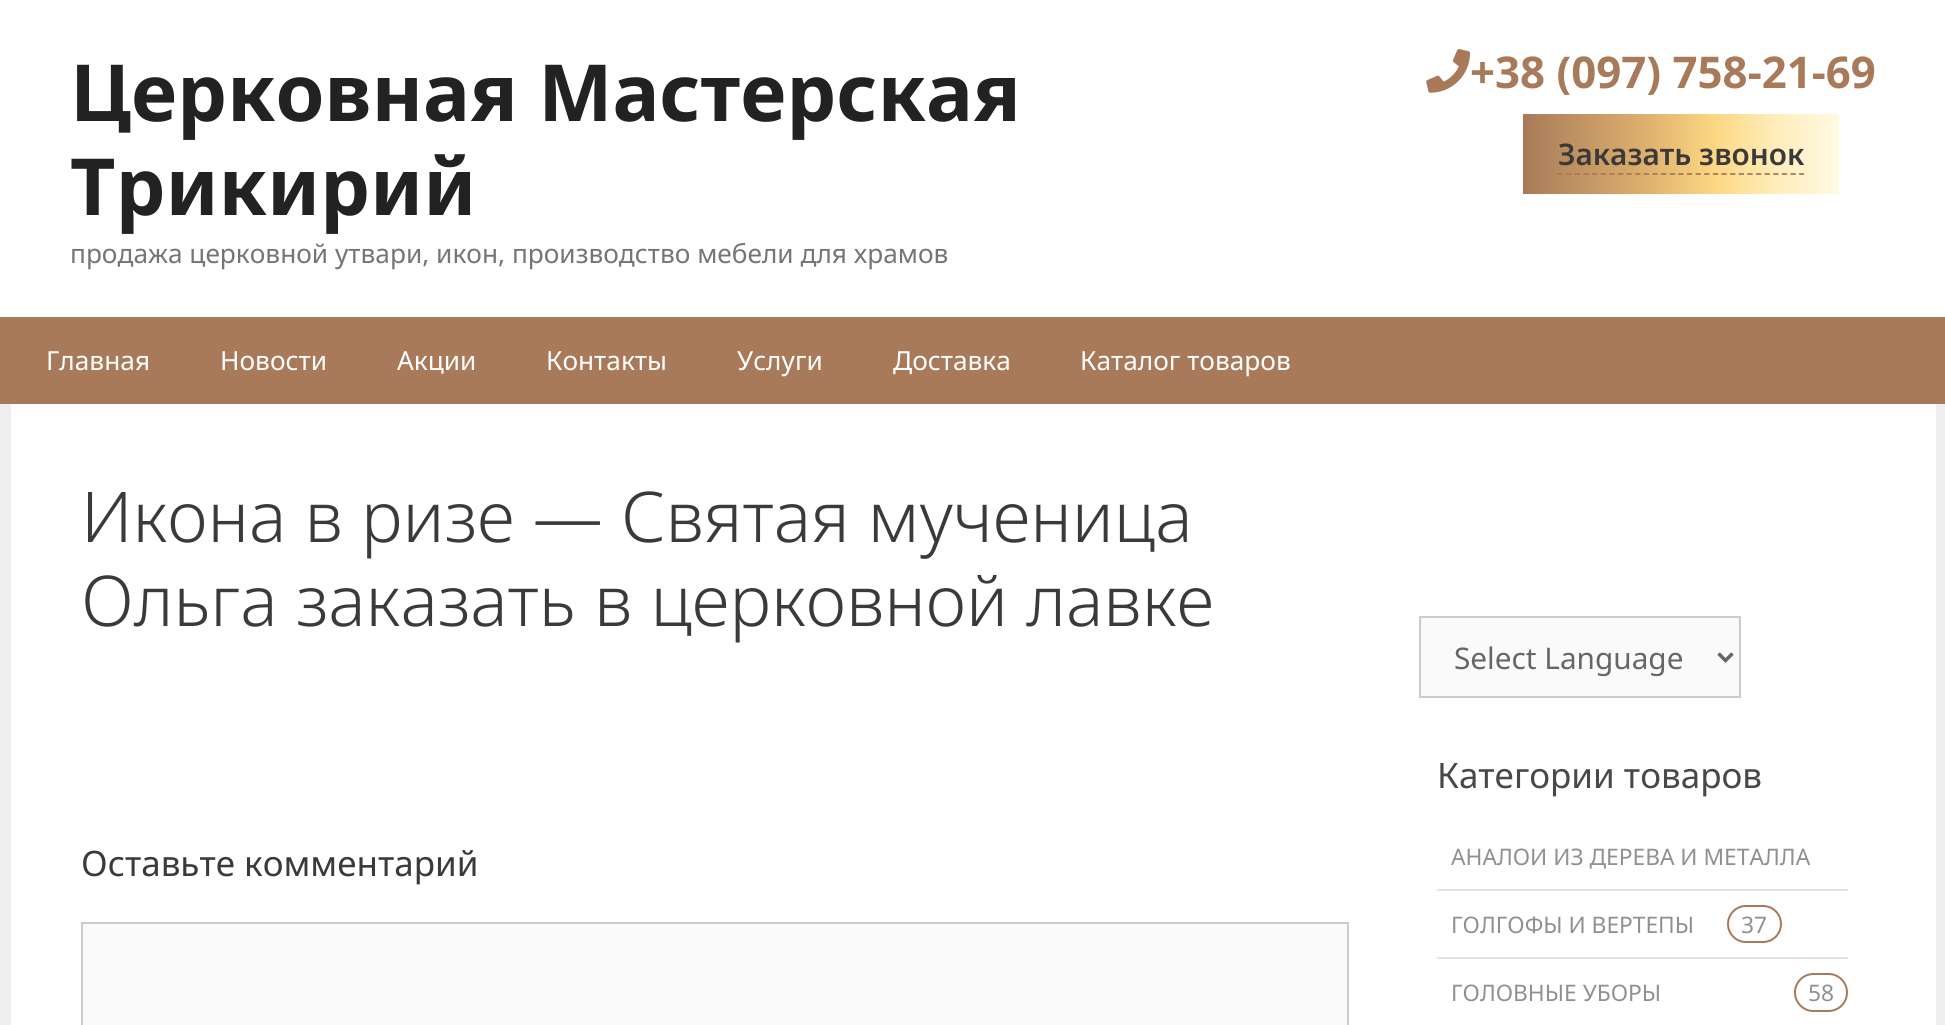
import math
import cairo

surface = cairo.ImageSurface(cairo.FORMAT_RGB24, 1945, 1025)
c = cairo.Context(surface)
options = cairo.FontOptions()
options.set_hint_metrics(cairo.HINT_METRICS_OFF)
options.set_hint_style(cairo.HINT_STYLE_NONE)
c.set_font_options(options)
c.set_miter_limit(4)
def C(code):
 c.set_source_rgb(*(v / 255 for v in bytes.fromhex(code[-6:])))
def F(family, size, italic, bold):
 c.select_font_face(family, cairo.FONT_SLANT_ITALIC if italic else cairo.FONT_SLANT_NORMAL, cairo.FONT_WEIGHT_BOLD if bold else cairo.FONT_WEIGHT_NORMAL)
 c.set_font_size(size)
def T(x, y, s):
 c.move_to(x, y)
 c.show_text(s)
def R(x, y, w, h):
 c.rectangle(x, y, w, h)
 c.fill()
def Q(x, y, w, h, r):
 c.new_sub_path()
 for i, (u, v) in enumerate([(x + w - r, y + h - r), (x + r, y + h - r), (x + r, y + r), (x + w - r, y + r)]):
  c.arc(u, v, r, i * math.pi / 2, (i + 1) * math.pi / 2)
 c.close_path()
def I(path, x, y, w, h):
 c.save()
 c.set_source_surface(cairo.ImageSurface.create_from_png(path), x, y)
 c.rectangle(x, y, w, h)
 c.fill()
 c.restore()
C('efefef')
c.paint()
C('ffffff')
R(0,0,1945,317)
F('Noto Sans',78.75,0,1)
C('222222')
T(70,121,'Церковная Мастерская')
T(70,215,'Трикирий')
F('Noto Sans',26.25,0,0)
C('757575')
T(70,263,'продажа церковной утвари, икон, производство мебели для храмов')
I('1.png',1426,49,44,44)
F('Noto Sans',43.75,0,1)
C('a87a59')
T(1470,88,'+38 (097) 758-21-69')
gradient = cairo.LinearGradient(1523,154,1839,154)
gradient.add_color_stop_rgba(0,0.659,0.478,0.349,1)
gradient.add_color_stop_rgba(.4,0.875,0.698,0.435,1)
gradient.add_color_stop_rgba(.6,0.988,0.839,0.506,1)
gradient.add_color_stop_rgba(.8,1,0.929,0.733,1)
gradient.add_color_stop_rgba(1,1,0.98,0.894,1)
c.set_source(gradient)
R(1523,114,316,80)
F('Noto Sans SemiBold',29.75,0,0)
C('3a3a3a')
T(1558,165,'Заказать звонок')
c.new_path()
c.move_to(1557.5,174)
c.line_to(1804,174)
C('a87a59')
c.set_line_width(1.8)
c.set_dash([5.25,3.38])
c.stroke()
R(0,317,1945,87)
F('Noto Sans',26.25,0,0)
C('ffffff')
T(46,370,'Главная')
T(220,370,'Новости')
T(397,370,'Акции')
T(546,370,'Контакты')
T(737,370,'Услуги')
T(893,370,'Доставка')
T(1080,370,'Каталог товаров')
R(11,404,1925,621)
F('Noto Sans Light',70,0,0)
C('3a3a3a')
T(81,542,'Икона в ризе — Святая мученица')
T(81,626,'Ольга заказать в церковной лавке')
F('Noto Sans',35,0,0)
T(81,876,'Оставьте комментарий')
C('fafafa')
c.rectangle(82,923,1266,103)
c.fill_preserve()
C('cccccc')
c.set_line_width(2)
c.set_dash([])
c.stroke()
C('fafafa')
c.rectangle(1420,617,320,80)
c.fill_preserve()
C('cccccc')
c.stroke()
c.new_path()
c.move_to(1718.5,653.5)
c.line_to(1725.5,660.5)
c.line_to(1732.5,653.5)
C('666666')
c.set_line_width(3.5)
c.stroke()
F('Noto Sans',29.75,0,0)
T(1454,669,'Select Language')
F('Noto Sans',35,0,0)
C('484848')
T(1437,788,'Категории товаров')
C('e2e2e2')
R(1437,889,411,2)
F('Noto Sans',22.75,0,0)
C('909090')
T(1451,865,'АНАЛОИ ИЗ ДЕРЕВА И МЕТАЛЛА')
C('e2e2e2')
R(1437,957,411,2)
C('909090')
T(1451,933,'ГОЛГОФЫ И ВЕРТЕПЫ')
Q(1728,906,53,36,18)
C('a87a59')
c.set_line_width(2)
c.stroke()
C('909090')
T(1741,933,'37')
T(1451,1001,'ГОЛОВНЫЕ УБОРЫ')
Q(1795,974,52,37,18.5)
C('a87a59')
c.stroke()
C('909090')
T(1808,1001,'58')
surface.write_to_png('o.png')
